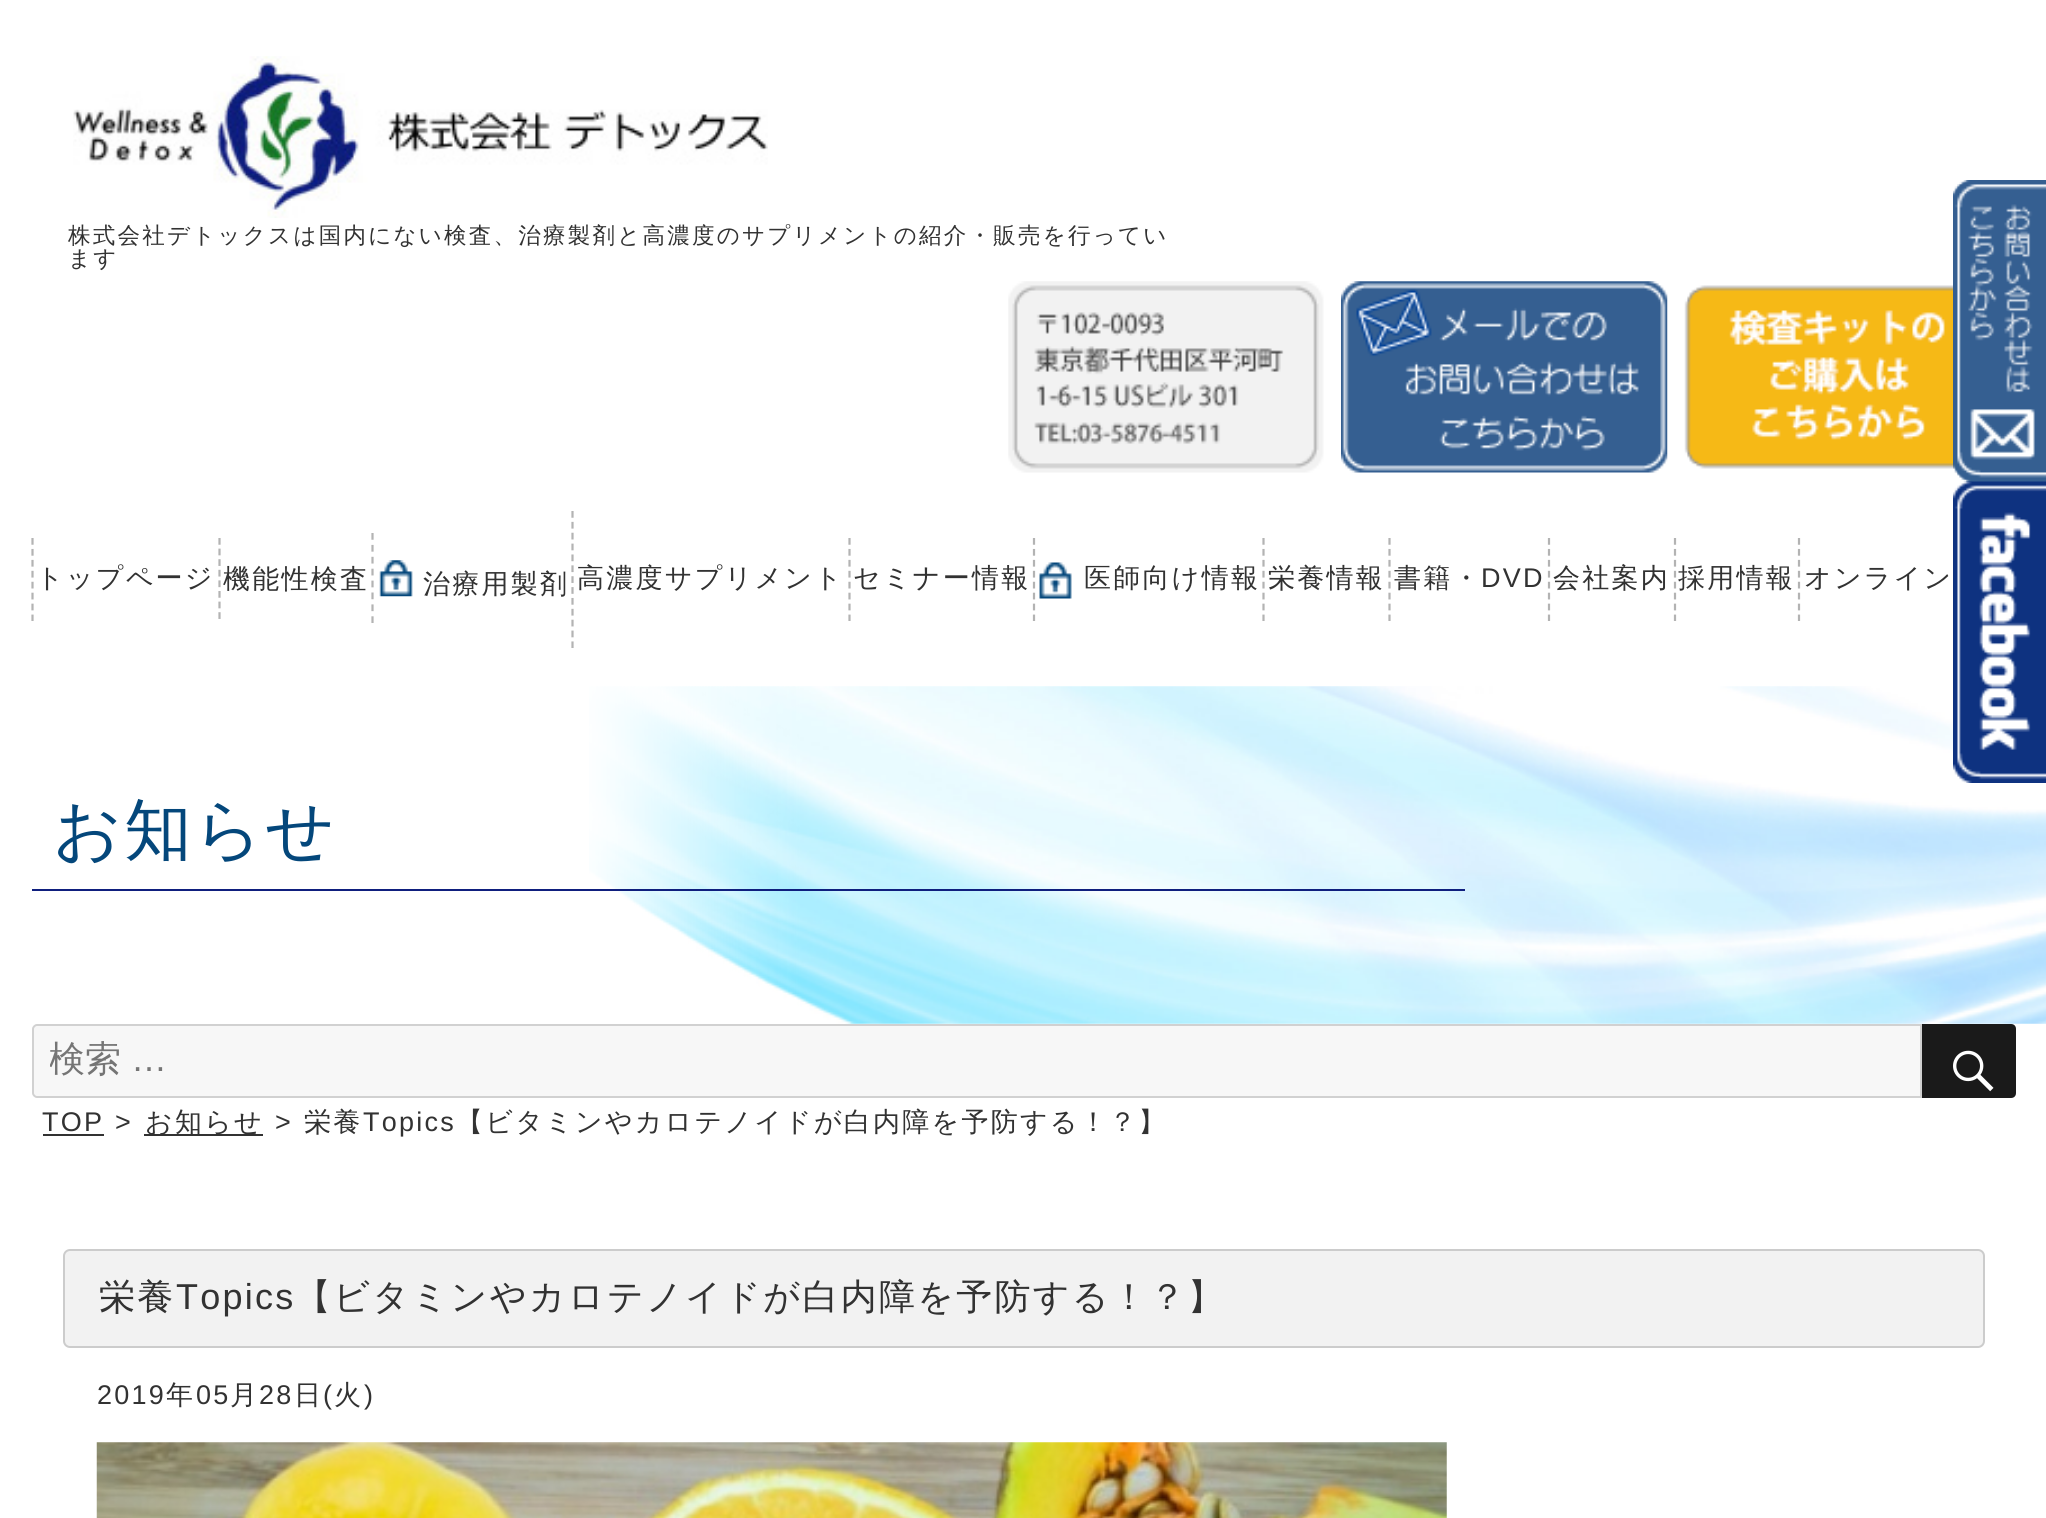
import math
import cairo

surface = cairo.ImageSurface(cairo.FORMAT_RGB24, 2046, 1518)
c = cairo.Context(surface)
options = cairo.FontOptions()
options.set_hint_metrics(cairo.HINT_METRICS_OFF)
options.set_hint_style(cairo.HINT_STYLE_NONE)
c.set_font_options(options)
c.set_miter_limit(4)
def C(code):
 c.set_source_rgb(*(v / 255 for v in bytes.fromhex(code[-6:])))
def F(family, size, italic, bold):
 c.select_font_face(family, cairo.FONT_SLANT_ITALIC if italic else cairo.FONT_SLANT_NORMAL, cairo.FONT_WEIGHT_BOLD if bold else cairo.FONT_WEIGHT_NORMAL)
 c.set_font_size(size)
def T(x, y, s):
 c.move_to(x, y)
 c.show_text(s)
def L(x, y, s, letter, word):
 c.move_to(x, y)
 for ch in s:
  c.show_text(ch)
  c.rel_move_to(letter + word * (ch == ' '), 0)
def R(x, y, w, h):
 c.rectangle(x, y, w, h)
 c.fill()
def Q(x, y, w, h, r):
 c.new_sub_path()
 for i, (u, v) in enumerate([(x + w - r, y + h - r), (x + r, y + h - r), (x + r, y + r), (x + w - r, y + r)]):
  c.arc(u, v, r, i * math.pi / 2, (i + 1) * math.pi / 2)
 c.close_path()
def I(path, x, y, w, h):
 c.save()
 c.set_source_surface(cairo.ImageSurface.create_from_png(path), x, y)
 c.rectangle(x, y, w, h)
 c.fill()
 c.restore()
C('ffffff')
c.paint()
I('5.png',1684,285,275,184)
I('1.png',1953,180,93,302)
I('2.png',73,56,695,162)
F('WenQuanYi Zen Hei Medium',22.5,0,0)
C('323232')
L(68,243,'株式会社デトックスは国内にない検査、治療製剤と高濃度のサプリメントの紹介・販売を行ってい',2.25,0)
L(68,266,'ます',2.25,0)
I('3.png',1008,281,316,192)
I('4.png',1341,281,327,192)
I('6.png',1953,180,19,302)
I('10.png',589,686,1457,338)
I('7.png',1953,481,93,302)
c.new_path()
c.move_to(32.5,538)
c.line_to(32.5,621)
C('b3b3b3')
c.set_line_width(2.2)
c.set_dash([6.75,4.19])
c.stroke()
F('WenQuanYi Zen Hei Medium',27,0,0)
C('323232')
L(36,587,'トップページ',2.25,0)
c.new_path()
c.move_to(219.5,538)
c.line_to(219.5,619)
C('b3b3b3')
c.set_dash([6.75,3.85])
c.stroke()
C('323232')
L(223,588,'機能性検査',2.25,0)
c.new_path()
c.move_to(372.5,533)
c.line_to(372.5,623)
C('b3b3b3')
c.set_dash([6.75,5.15])
c.stroke()
I('8.png',379,560,34,37)
C('323232')
L(423,593,'治療用製剤',2.25,0)
c.new_path()
c.move_to(572.5,511)
c.line_to(572.5,648)
C('b3b3b3')
c.set_dash([6.75,4.12])
c.stroke()
C('323232')
L(577,587,'高濃度サプリメント',2.25,0)
c.new_path()
c.move_to(849.5,538)
c.line_to(849.5,621)
C('b3b3b3')
c.set_dash([6.75,4.19])
c.stroke()
C('323232')
L(853,587,'セミナー情報',2.25,0)
c.new_path()
c.move_to(1034,538)
c.line_to(1034,621)
C('b3b3b3')
c.stroke()
I('9.png',1039,562,33,37)
C('323232')
L(1084,587,'医師向け情報',2.25,0)
c.new_path()
c.move_to(1263.5,538)
c.line_to(1263.5,621)
C('b3b3b3')
c.stroke()
C('323232')
L(1268,587,'栄養情報',2.25,0)
c.new_path()
c.move_to(1389.5,538)
c.line_to(1389.5,621)
C('b3b3b3')
c.stroke()
C('323232')
L(1394,587,'書籍・',2.25,0)
F('Liberation Sans',27,0,0)
L(1481,587,'DVD',2.25,0)
c.new_path()
c.move_to(1549,538)
c.line_to(1549,621)
C('b3b3b3')
c.stroke()
F('WenQuanYi Zen Hei Medium',27,0,0)
C('323232')
L(1553,587,'会社案内',2.25,0)
c.new_path()
c.move_to(1675,538)
c.line_to(1675,621)
C('b3b3b3')
c.stroke()
C('323232')
L(1678,587,'採用情報',2.25,0)
c.new_path()
c.move_to(1799,538)
c.line_to(1799,621)
C('b3b3b3')
c.stroke()
C('323232')
L(1804,587,'オンライン',2.25,0)
C('0f1f7e')
R(32,889,1433,2)
F('WenQuanYi Zen Hei Medium',67.5,0,0)
C('04477b')
L(53,853,'お知らせ',2.25,0)
C('f7f7f7')
c.new_path()
c.move_to(37,1025)
c.line_to(1921,1025)
c.line_to(1921,1097)
c.line_to(37,1097)
c.curve_to(35,1097,33,1095,33,1093)
c.line_to(33,1029)
c.curve_to(33,1027,35,1025,37,1025)
c.close_path()
c.fill_preserve()
C('d1d1d1')
c.set_line_width(2)
c.set_dash([])
c.stroke()
c.save()
c.rectangle(50,1037,1845,48)
c.clip()
F('WenQuanYi Zen Hei Medium',36,0,0)
C('757575')
T(49,1071,'検索')
c.restore()
F('Liberation Sans',36,0,0)
C('757575')
T(131,1071,'…')
C('1a1a1a')
c.new_path()
c.move_to(1922,1024)
c.line_to(2011,1024)
c.curve_to(2014,1024,2016,1026,2016,1029)
c.line_to(2016,1093)
c.curve_to(2016,1096,2014,1098,2011,1098)
c.line_to(1922,1098)
c.close_path()
c.fill()
I('11.png',1953,1050,41,42)
F('Liberation Sans',27,0,0)
C('323232')
L(42,1131,'TOP',2.25,0)
R(43,1134,61,2)
L(115,1131,'>',2.25,0)
R(144,1134,119,2)
F('WenQuanYi Zen Hei Medium',27,0,0)
L(145,1131,'お知らせ',2.25,0)
F('Liberation Sans',27,0,0)
L(275,1131,'>',2.25,0)
F('WenQuanYi Zen Hei Medium',27,0,0)
L(304,1131,'栄養',2.25,0)
F('Liberation Sans',27,0,0)
L(363,1131,'Topics',2.25,0)
F('WenQuanYi Zen Hei Medium',27,0,0)
L(456,1131,'【ビタミンやカロテノイドが白内障を予防する！？】',2.25,0)
C('f2f2f2')
Q(64,1250,1920,97,6)
c.fill_preserve()
C('cccccc')
c.stroke()
F('WenQuanYi Zen Hei Medium',36,0,0)
C('323232')
L(99,1309,'栄養',2.25,0)
F('Liberation Sans',36,0,0)
L(176,1309,'Topics',2.25,0)
F('WenQuanYi Zen Hei Medium',36,0,0)
L(295,1309,'【ビタミンやカロテノイドが白内障を予防する！？】',2.25,0)
F('Liberation Sans',27,0,0)
L(97,1404,'2019',2.25,0)
F('WenQuanYi Zen Hei Medium',27,0,0)
L(166,1404,'年',2.25,0)
F('Liberation Sans',27,0,0)
L(196,1404,'05',2.25,0)
F('WenQuanYi Zen Hei Medium',27,0,0)
L(230,1404,'月',2.25,0)
F('Liberation Sans',27,0,0)
L(259,1404,'28',2.25,0)
F('WenQuanYi Zen Hei Medium',27,0,0)
L(294,1404,'日',2.25,0)
F('Liberation Sans',27,0,0)
L(323,1404,'(',2.25,0)
F('WenQuanYi Zen Hei Medium',27,0,0)
L(334,1404,'火',2.25,0)
F('Liberation Sans',27,0,0)
L(364,1404,')',2.25,0)
I('12.png',96,1442,1351,76)
surface.write_to_png('o.png')
